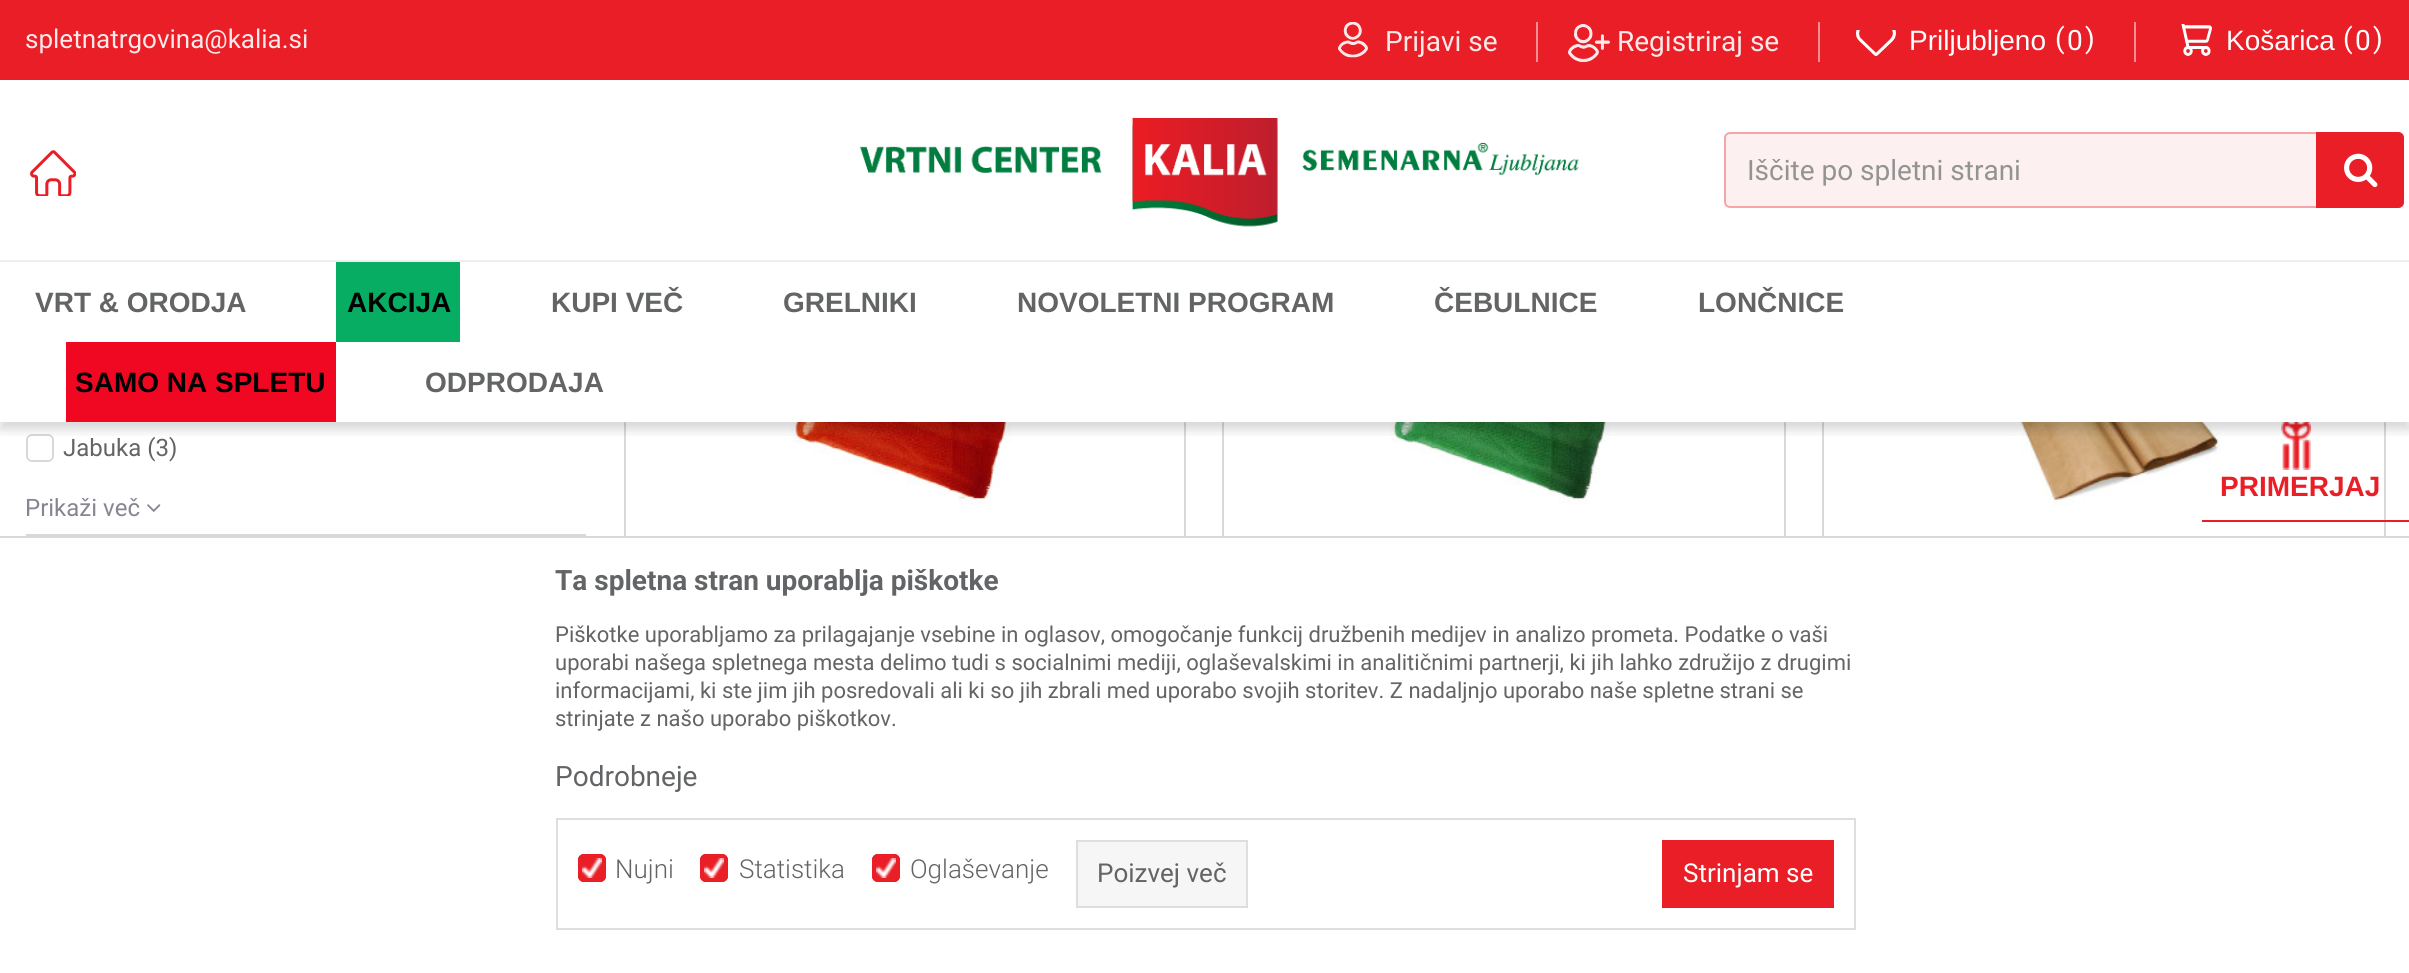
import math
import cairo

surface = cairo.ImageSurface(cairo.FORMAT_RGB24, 2409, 973)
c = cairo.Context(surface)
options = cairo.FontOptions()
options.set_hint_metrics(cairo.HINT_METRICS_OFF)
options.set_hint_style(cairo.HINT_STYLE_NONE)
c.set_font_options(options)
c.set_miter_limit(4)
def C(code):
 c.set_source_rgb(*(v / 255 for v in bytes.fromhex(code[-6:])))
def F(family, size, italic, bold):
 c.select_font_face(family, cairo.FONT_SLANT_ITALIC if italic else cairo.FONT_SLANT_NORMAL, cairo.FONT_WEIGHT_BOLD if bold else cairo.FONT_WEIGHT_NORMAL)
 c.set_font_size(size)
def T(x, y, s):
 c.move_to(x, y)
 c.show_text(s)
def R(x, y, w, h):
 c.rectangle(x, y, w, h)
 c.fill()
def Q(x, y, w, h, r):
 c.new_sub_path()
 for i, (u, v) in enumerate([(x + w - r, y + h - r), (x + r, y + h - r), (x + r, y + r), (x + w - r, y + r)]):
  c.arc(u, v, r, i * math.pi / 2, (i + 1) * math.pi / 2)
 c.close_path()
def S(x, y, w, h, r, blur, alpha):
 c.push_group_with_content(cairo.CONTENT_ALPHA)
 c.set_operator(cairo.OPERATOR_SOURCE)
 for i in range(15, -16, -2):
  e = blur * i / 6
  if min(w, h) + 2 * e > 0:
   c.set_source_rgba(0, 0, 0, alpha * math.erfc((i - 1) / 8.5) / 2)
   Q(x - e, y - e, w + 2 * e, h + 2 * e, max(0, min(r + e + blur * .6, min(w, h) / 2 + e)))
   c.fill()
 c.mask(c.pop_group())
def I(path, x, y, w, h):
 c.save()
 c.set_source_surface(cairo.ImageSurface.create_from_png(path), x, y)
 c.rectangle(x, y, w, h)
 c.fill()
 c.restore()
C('ffffff')
c.paint()
c.rectangle(616,170,578,770)
C('d9d9d9')
c.set_line_width(20)
c.stroke()
c.rectangle(615,169,580,772)
C('ffffff')
c.set_line_width(18)
c.stroke()
c.rectangle(1214,170,580,770)
C('d9d9d9')
c.set_line_width(20)
c.stroke()
c.rectangle(1213,169,582,772)
C('ffffff')
c.set_line_width(18)
c.stroke()
c.rectangle(1814,170,580,770)
C('d9d9d9')
c.set_line_width(20)
c.stroke()
c.rectangle(1813,169,582,772)
C('ffffff')
c.set_line_width(18)
c.stroke()
R(624,178,1762,244)
Q(27,435,26,26,5)
C('d9d9d9')
c.set_line_width(2)
c.stroke()
I('9.png',791,422,230,84)
I('10.png',1390,422,231,82)
I('11.png',1990,422,231,84)
I('12.png',2281,422,30,48)
c.save()
c.rectangle(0,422,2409,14)
c.clip()
C('000000')
S(0,8,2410,422,0,5,.15)
c.restore()
C('ea1e26')
R(0,0,2409,80)
F('Roboto',26,0,0)
C('fde9e9')
T(25,48,'spletnatrgovina@kalia.si')
I('1.png',1338,22,30,36)
F('Roboto',28,0,0)
T(1385,51,'Prijavi se')
C('f58f93')
R(1536,22,2,40)
I('2.png',1568,24,42,38)
C('fde9e9')
T(1617,51,'Registriraj se')
C('f58f93')
R(1818,22,2,40)
I('3.png',1856,30,40,26)
F('Liberation Sans',28,0,0)
C('ffffff')
T(1909,50,'Priljubljeno')
F('Roboto',28,0,0)
T(2055,48,'(')
T(2067,50,'0')
T(2085,48,')')
C('f58f93')
R(2134,22,2,40)
I('4.png',2181,24,31,32)
F('Liberation Sans',28,0,0)
C('ffffff')
T(2226,50,'Košarica')
F('Roboto',28,0,0)
T(2343,48,'(')
T(2355,50,'0')
T(2373,48,')')
C('eeeeee')
R(0,260,2409,2)
I('5.png',30,150,46,46)
I('6.png',860,118,719,109)
C('fcf0f0')
Q(1724,132,680,76,6)
c.fill()
Q(1725,133,678,74,5)
c.set_source_rgba(0.918,0.118,0.149,0.35)
c.stroke()
C('939393')
T(1747,180,'Iščite po spletni strani')
C('ea1e26')
c.new_path()
c.move_to(2316,132)
c.line_to(2398,132)
c.curve_to(2401.5,132,2404,134.5,2404,138)
c.line_to(2404,202)
c.curve_to(2404,205.5,2401.5,208,2398,208)
c.line_to(2316,208)
c.close_path()
c.fill()
I('7.png',2344,153,34,35)
F('Liberation Sans',28,0,1)
C('636466')
T(35,312,'VRT & ORODJA')
C('07ad62')
R(336,262,124,80)
C('000000')
T(347,312,'AKCIJA')
C('636466')
T(551,312,'KUPI VEČ')
T(783,312,'GRELNIKI')
T(1017,312,'NOVOLETNI PROGRAM')
T(1434,312,'ČEBULNICE')
T(1698,312,'LONČNICE')
C('f00823')
R(66,342,270,80)
C('000000')
T(75,392,'SAMO NA SPLETU')
C('636466')
T(425,392,'ODPRODAJA')
C('d9d9d9')
R(26,534,560,2)
F('Roboto',24,0,0)
C('636466')
T(63,456,'Jabuka (3)')
C('868692')
T(25,516,'Prikaži več')
I('8.png',147,504,14,8)
C('ea1e26')
R(2202,520,207,2)
F('Liberation Sans',28,0,1)
T(2220,496,'PRIMERJAJ')
c.rectangle(-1,537,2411,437)
C('d9d9d9')
c.stroke()
C('ffffff')
R(624,538,1762,394)
F('Roboto',28,0,1)
C('636466')
T(555,590,'Ta spletna stran uporablja piškotke')
F('Roboto',22,0,0)
T(555,642,'Piškotke uporabljamo za prilagajanje vsebine in oglasov, omogočanje funkcij družbenih medijev in analizo prometa. Podatke o vaši')
T(555,670,'uporabi našega spletnega mesta delimo tudi s socialnimi mediji, oglaševalskimi in analitičnimi partnerji, ki jih lahko združijo z drugimi')
T(555,698,'informacijami, ki ste jim jih posredovali ali ki so jih zbrali med uporabo svojih storitev. Z nadaljnjo uporabo naše spletne strani se')
T(555,726,'strinjate z našo uporabo piškotkov.')
F('Roboto',28,0,0)
T(555,786,'Podrobneje')
c.rectangle(557,819,1298,110)
C('dedede')
c.stroke()
C('ea1e26')
Q(578,854,28,28,6)
c.fill()
I('13.png',582,858,20,20)
Q(579,855,26,26,5)
c.stroke()
F('Roboto Light',26,0,0)
C('636466')
T(615,878,'Nujni')
C('ea1e26')
Q(700,854,28,28,6)
c.fill()
I('13.png',704,858,20,20)
Q(701,855,26,26,5)
c.stroke()
C('636466')
T(739,878,'Statistika')
C('ea1e26')
Q(872,854,28,28,6)
c.fill()
I('13.png',876,858,20,20)
Q(873,855,26,26,5)
c.stroke()
C('636466')
T(910,878,'Oglaševanje')
C('f6f6f6')
c.rectangle(1077,841,170,66)
c.fill_preserve()
C('dedede')
c.stroke()
F('Roboto',26,0,0)
C('636466')
T(1097,882,'Poizvej več')
C('ea1e26')
R(1662,840,172,68)
C('ffffff')
T(1683,882,'Strinjam se')
surface.write_to_png('o.png')
